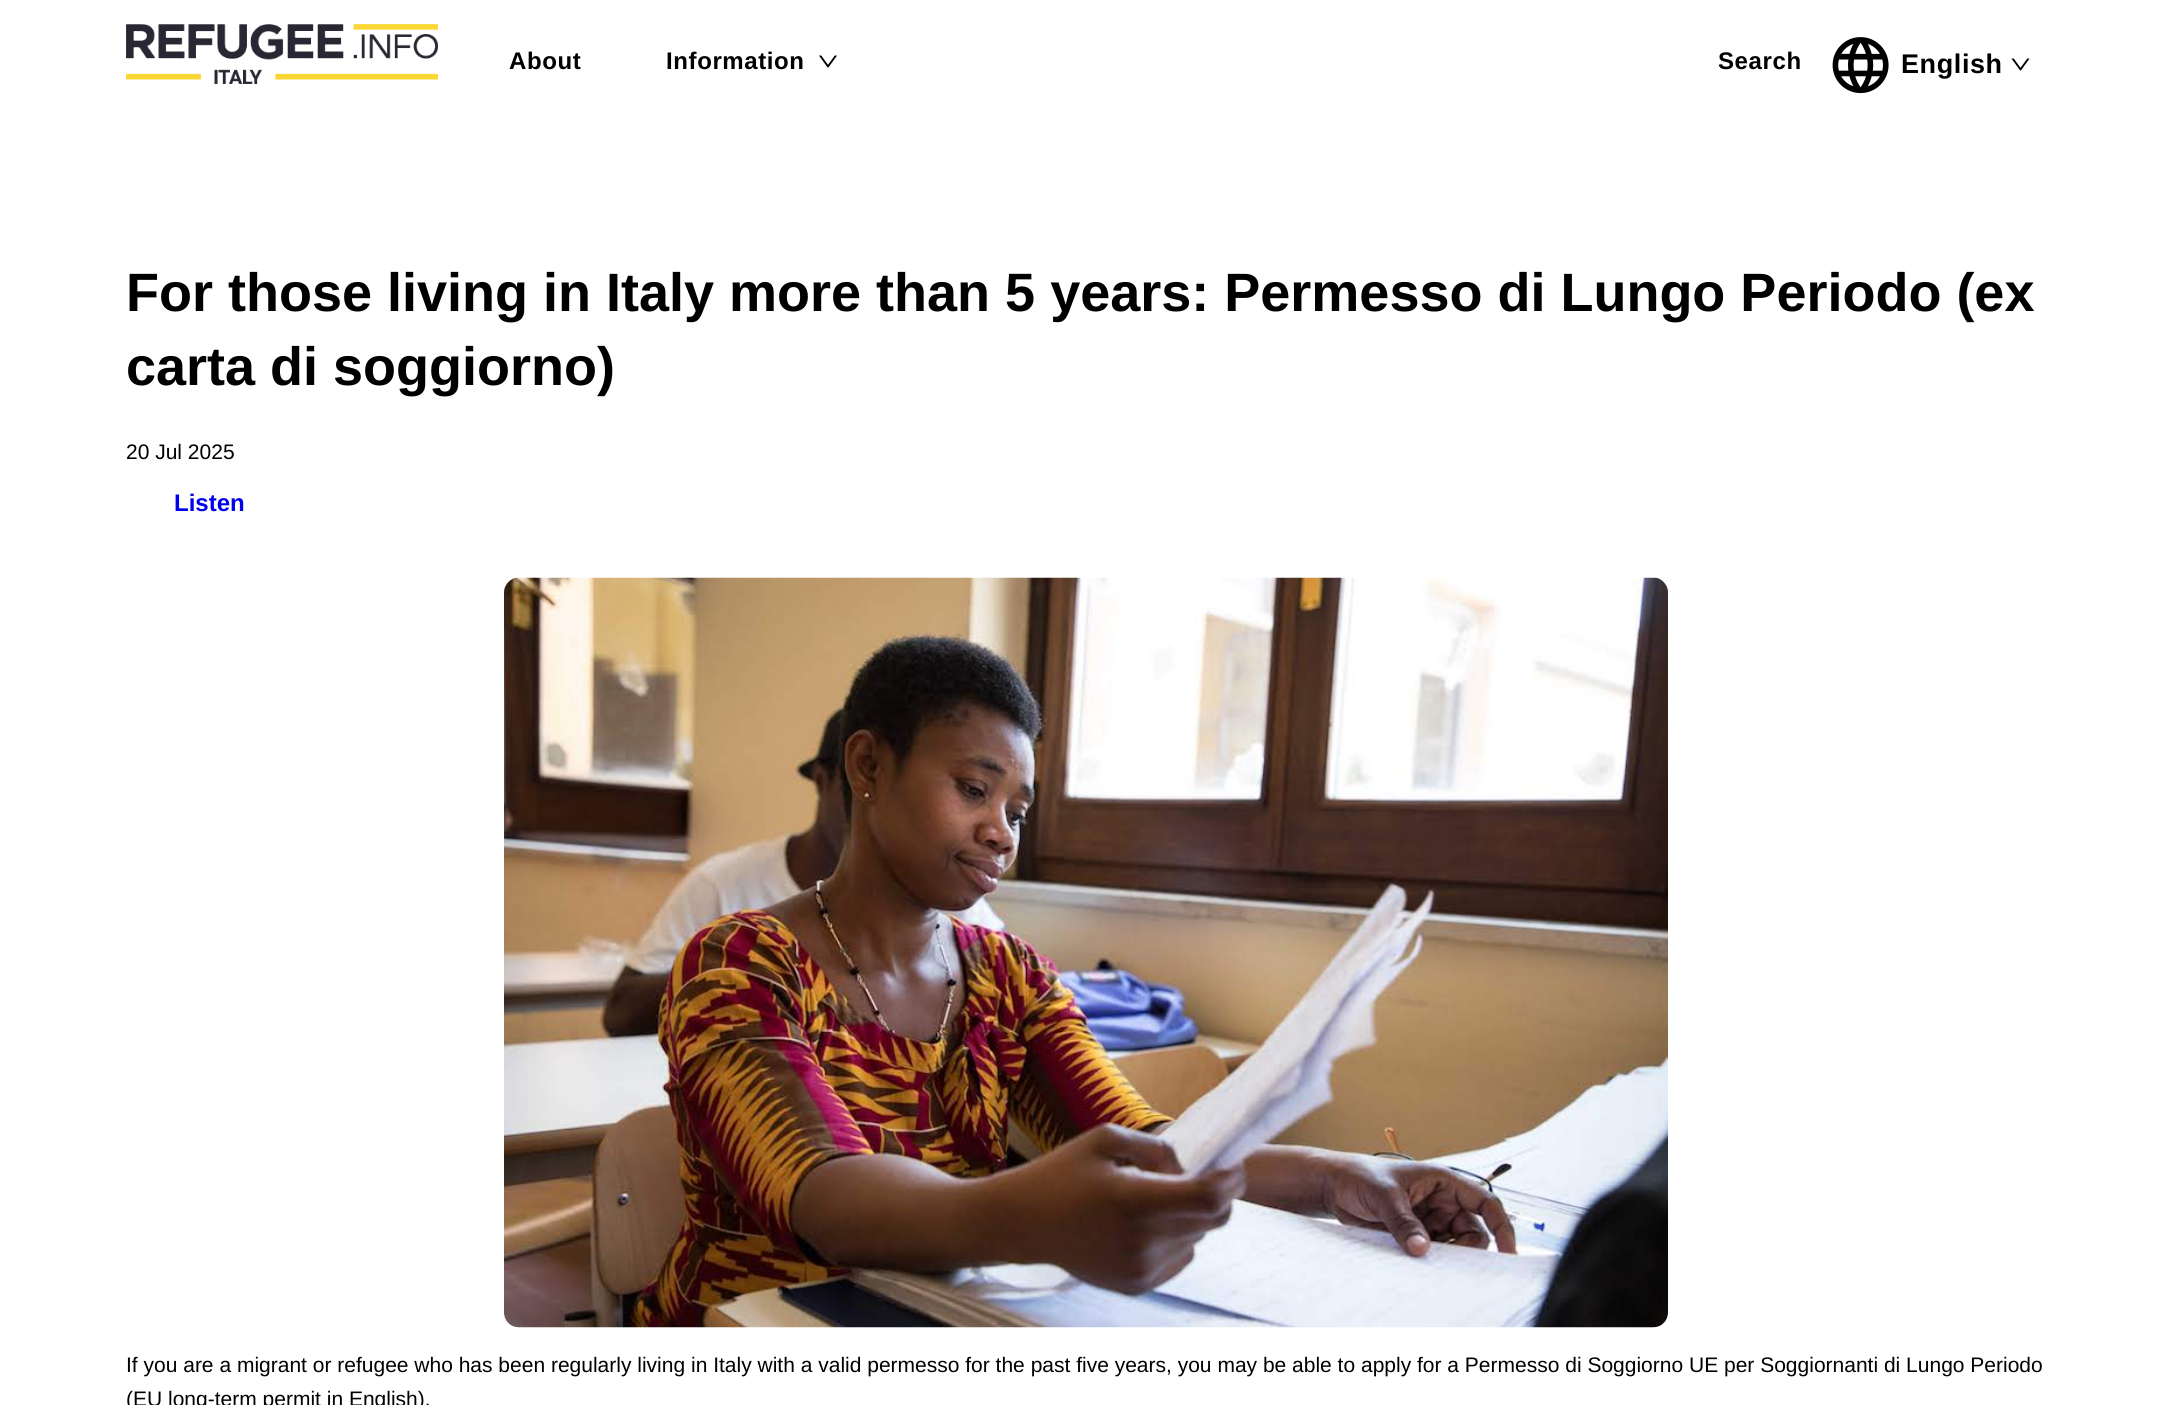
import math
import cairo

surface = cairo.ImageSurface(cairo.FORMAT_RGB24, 2172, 1405)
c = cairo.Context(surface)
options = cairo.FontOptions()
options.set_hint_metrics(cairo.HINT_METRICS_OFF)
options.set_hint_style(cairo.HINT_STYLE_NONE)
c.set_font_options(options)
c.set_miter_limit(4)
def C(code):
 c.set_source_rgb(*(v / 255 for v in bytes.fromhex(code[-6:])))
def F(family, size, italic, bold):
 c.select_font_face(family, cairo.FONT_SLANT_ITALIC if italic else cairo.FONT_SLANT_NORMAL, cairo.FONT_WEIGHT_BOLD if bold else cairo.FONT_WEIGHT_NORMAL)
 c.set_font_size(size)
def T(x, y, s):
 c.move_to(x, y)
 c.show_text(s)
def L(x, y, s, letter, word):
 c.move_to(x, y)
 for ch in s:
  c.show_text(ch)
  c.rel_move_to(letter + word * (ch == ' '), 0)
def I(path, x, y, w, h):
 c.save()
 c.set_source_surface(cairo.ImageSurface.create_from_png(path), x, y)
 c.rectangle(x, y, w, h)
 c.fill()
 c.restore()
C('ffffff')
c.paint()
I('1.png',126,24,312,60)
F('Liberation Sans',24,0,1)
C('000000')
L(509,69,'About',.6,0)
L(666,69,'Information',.6,0)
I('2.png',819,55,18,13)
L(1718,69,'Search',.6,0)
I('3.png',1832,37,57,57)
F('Liberation Sans',27,0,1)
L(1901,73,'English',.6,0)
I('4.png',2011,58,19,13)
F('Liberation Sans',54,0,1)
T(126,311,'For those living in Italy more than 5 years: Permesso di Lungo Periodo (ex')
T(126,385,'carta di soggiorno)')
F('Liberation Sans',21,0,0)
T(126,459,'20 Jul 2025')
F('Liberation Sans',24,0,1)
C('0000ee')
T(174,511,'Listen')
I('5.png',504,577,1164,751)
F('Liberation Sans',21,0,0)
C('000000')
T(126,1372,'If you are a migrant or refugee who has been regularly living in Italy with a valid permesso for the past five years, you may be able to apply for a Permesso di Soggiorno UE per Soggiornanti di Lungo Periodo')
T(126,1406,'(EU long-term permit in English).')
surface.write_to_png('o.png')
